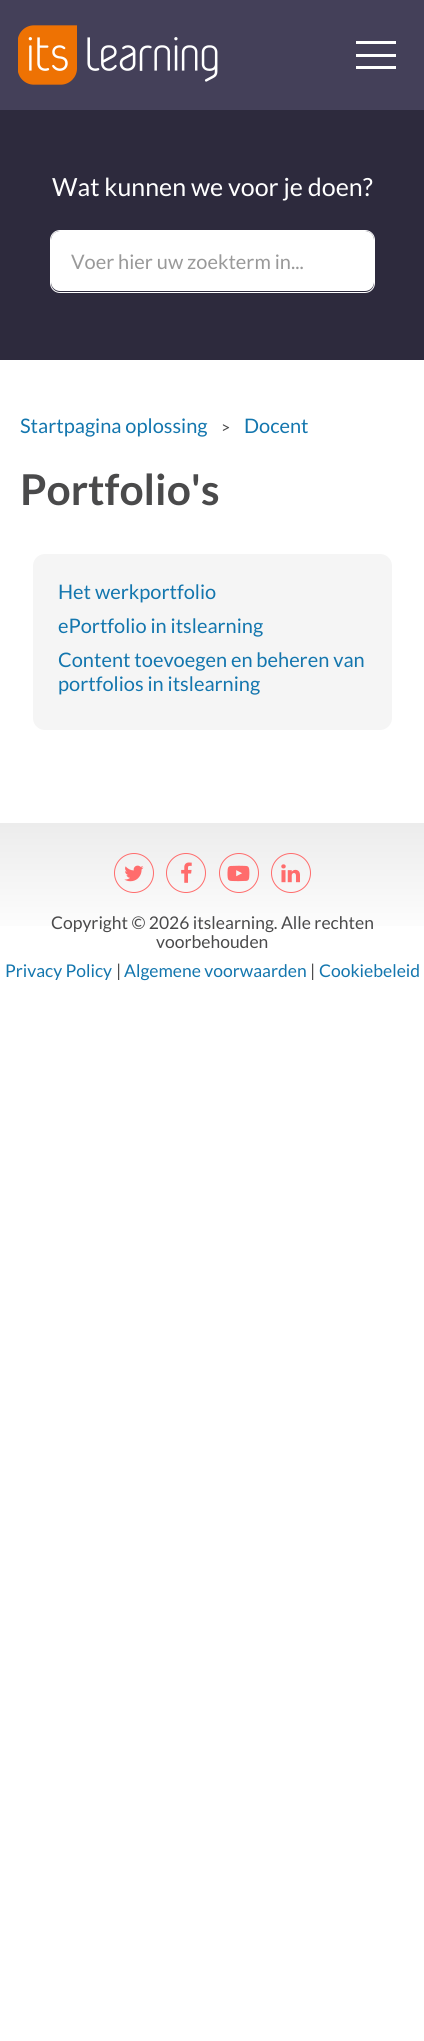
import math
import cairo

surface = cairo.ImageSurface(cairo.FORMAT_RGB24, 424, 2041)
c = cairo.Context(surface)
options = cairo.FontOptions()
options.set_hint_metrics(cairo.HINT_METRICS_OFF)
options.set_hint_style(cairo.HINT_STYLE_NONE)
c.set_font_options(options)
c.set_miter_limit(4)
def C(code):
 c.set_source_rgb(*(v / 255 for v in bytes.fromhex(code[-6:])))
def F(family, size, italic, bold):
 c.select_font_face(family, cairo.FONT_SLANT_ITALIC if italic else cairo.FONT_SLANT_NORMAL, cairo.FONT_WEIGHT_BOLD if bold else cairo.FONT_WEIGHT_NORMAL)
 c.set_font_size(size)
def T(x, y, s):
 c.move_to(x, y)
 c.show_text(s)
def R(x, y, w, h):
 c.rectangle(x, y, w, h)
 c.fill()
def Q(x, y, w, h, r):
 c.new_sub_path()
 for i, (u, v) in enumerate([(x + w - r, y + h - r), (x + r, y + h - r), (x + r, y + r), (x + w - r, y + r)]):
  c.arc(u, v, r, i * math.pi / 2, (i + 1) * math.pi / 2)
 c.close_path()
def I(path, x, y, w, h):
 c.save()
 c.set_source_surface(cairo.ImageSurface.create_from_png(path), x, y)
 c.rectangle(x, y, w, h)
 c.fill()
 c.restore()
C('ffffff')
c.paint()
C('444059')
R(0,0,424,110)
I('1.png',18,25,200,60)
C('ffffff')
R(356,54,40,3)
R(356,41,40,3)
R(356,66,40,3)
C('2d2a3d')
R(0,110,424,250)
F('Lato',25,0,0)
C('ffffff')
T(52,196,'Wat kunnen we voor je doen?')
Q(51,231,323,60,9)
c.fill()
Q(50.5,230.5,324,62,9.5)
c.set_line_width(1)
c.stroke()
F('Lato',20,0,0)
C('999999')
T(71,269,'Voer hier uw zoekterm in...')
C('1376ae')
T(20,433,'Startpagina oplossing')
F('Lato',16,0,0)
C('4a4a4b')
T(221,433,'>')
F('Lato',20,0,0)
C('1376ae')
T(244,433,'Docent')
F('Lato',42.5,0,1)
C('4a4a4b')
T(20,505,'Portfolio\'s')
C('f5f5f5')
Q(26.5,547.5,372,189,18.5)
c.fill_preserve()
C('ffffff')
c.set_line_width(13)
c.stroke()
F('Lato',20,0,0)
C('1376ae')
T(58,599,'Het werkportfolio')
T(58,633,'ePortfolio in itslearning')
T(58,667,'Content toevoegen en beheren van')
T(58,691,'portfolios in itslearning')
gradient = cairo.LinearGradient(213,823,213,1020)
gradient.add_color_stop_rgba(0,0.925,0.925,0.925,1)
gradient.add_color_stop_rgba(.6,1,1,1,1)
c.set_source(gradient)
R(0,823,424,103)
c.new_path()
c.arc(134,873,19.5,0,2 * math.pi)
C('ff6c6c')
c.set_line_width(1)
c.stroke()
I('2.png',124,865,20,17)
c.arc(186,873,19.5,0,2 * math.pi)
c.stroke()
I('3.png',181,862,11,21)
c.arc(239,873,19.5,0,2 * math.pi)
c.stroke()
I('4.png',227,865,23,17)
c.arc(291,873,19.5,0,2 * math.pi)
c.stroke()
I('5.png',281,864,19,19)
F('Lato',17.5,0,0)
C('4a4a4b')
T(51,929,'Copyright © 2026 itslearning. Alle rechten')
T(156,948,'voorbehouden')
C('1376ae')
T(5,977,'Privacy Policy')
C('4a4a4b')
T(116,977,'|')
C('1376ae')
T(124,977,'Algemene voorwaarden')
C('4a4a4b')
T(310,977,'|')
C('1376ae')
T(319,977,'Cookiebeleid')
surface.write_to_png('o.png')
